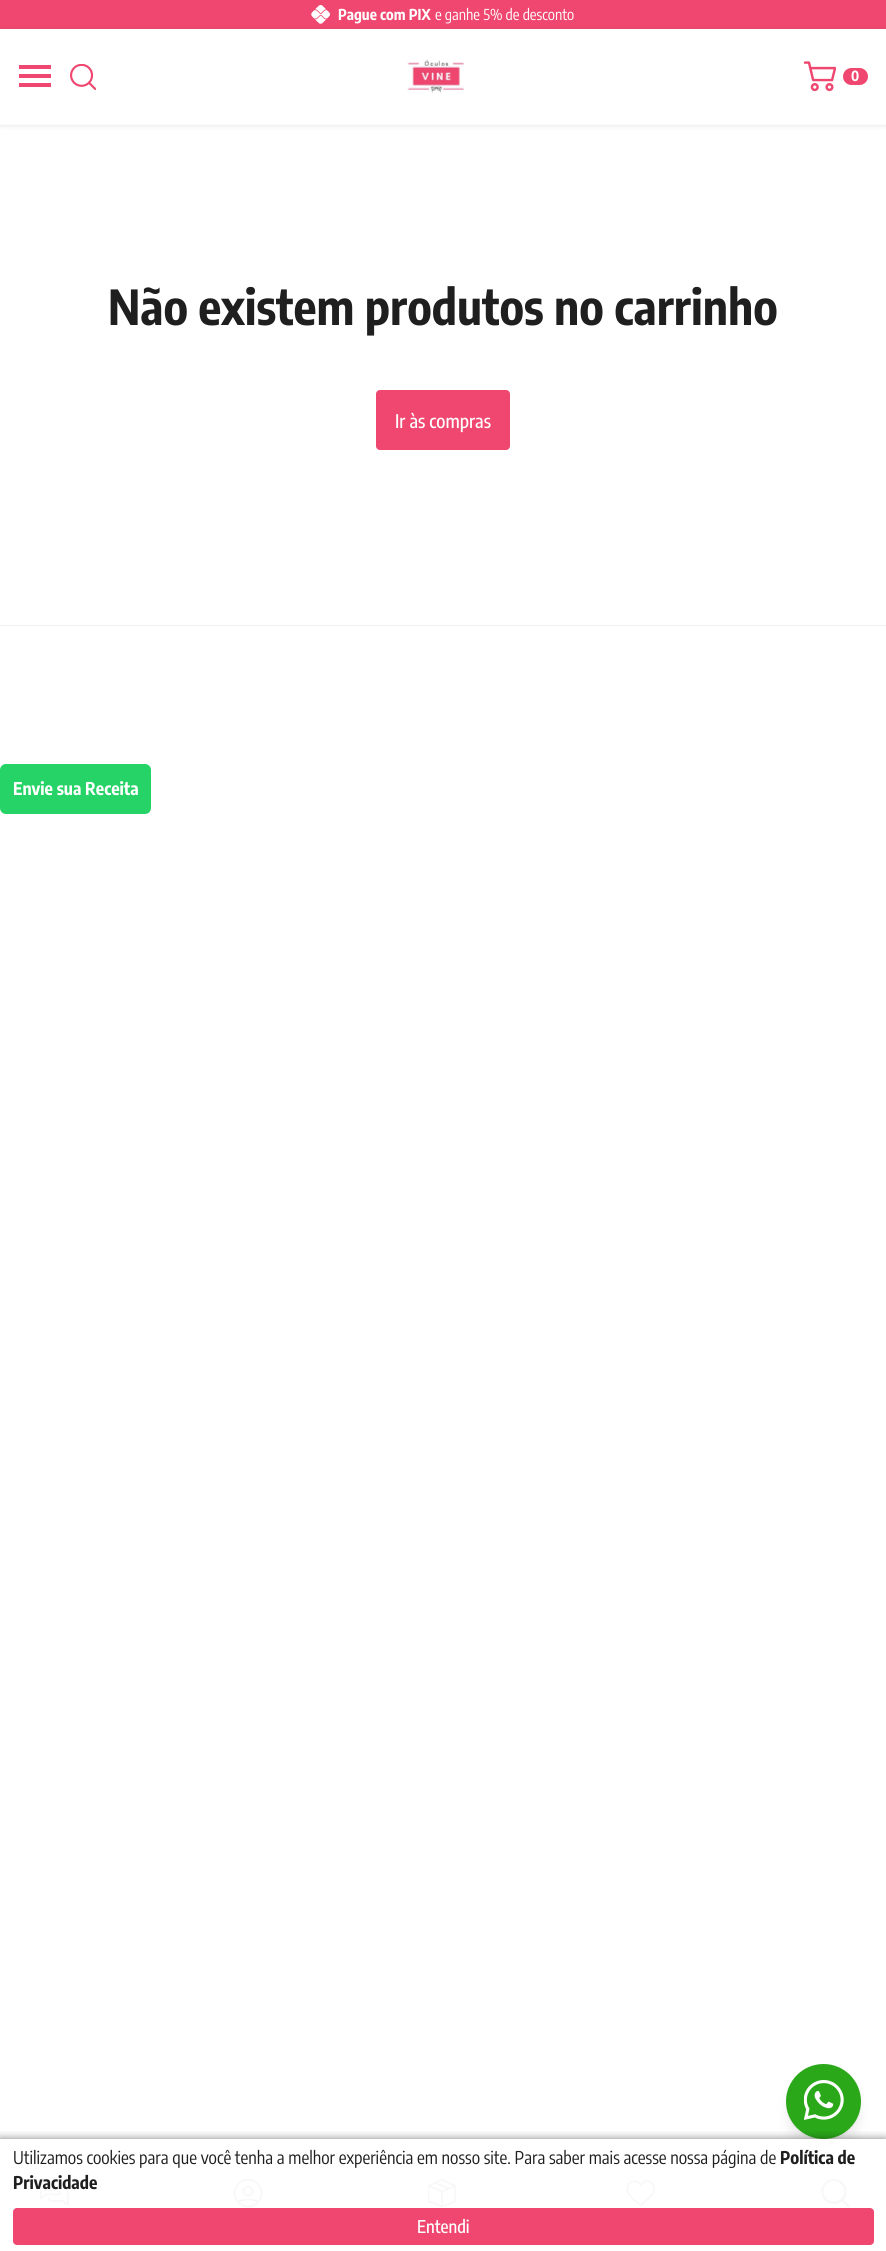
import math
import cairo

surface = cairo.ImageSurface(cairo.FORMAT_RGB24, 886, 2251)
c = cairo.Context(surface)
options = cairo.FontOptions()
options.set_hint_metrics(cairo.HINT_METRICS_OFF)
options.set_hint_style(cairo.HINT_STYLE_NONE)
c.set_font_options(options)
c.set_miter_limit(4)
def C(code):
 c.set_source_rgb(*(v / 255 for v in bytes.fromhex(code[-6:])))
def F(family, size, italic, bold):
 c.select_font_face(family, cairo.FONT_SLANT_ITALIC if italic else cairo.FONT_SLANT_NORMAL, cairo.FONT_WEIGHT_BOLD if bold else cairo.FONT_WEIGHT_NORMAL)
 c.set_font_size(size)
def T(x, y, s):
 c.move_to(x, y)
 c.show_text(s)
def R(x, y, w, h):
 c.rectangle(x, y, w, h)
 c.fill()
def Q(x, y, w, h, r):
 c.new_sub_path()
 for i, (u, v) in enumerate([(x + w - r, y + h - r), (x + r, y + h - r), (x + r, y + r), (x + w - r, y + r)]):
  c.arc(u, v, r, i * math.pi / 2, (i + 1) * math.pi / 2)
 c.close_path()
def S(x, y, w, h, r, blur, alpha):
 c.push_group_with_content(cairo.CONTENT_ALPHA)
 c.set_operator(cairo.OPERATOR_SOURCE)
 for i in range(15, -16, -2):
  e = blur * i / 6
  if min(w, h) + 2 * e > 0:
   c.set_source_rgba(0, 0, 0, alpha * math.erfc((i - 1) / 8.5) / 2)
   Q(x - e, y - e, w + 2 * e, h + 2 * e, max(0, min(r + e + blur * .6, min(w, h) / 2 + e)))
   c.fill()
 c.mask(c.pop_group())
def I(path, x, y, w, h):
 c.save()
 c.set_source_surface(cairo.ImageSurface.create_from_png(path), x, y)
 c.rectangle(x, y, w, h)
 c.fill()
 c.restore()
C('ffffff')
c.paint()
C('ef476f')
R(0,0,886,29)
I('1.png',311,5,19,19)
F('Encode Sans Condensed',15,0,1)
C('ffffff')
T(338,20,'Pague com PIX')
F('Encode Sans Condensed',15,0,0)
T(435,20,'e ganhe 5% de desconto')
c.save()
c.set_fill_rule(cairo.FILL_RULE_EVEN_ODD)
c.new_path()
c.move_to(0,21)
c.line_to(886,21)
c.line_to(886,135)
c.line_to(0,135)
c.close_path()
c.move_to(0,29)
c.line_to(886,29)
c.line_to(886,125)
c.line_to(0,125)
c.close_path()
c.clip()
C('525252')
S(0,30,886,96,0,2.5,.13)
c.restore()
C('fcfcfc')
R(0,124,886,1)
C('ef476f')
R(19,83,32,4)
R(19,74,32,4)
R(19,65,32,4)
I('2.png',70,64,26,26)
I('3.png',407,59,57,34)
I('4.png',804,61,32,31)
Q(843,68,25,17,8.5)
c.fill()
F('Encode Sans Condensed',14,0,1)
C('ffffff')
T(851,81,'0')
F('Encode Sans Condensed',48.1,0,1)
C('201f1f')
T(108,325,'Não existem produtos no carrinho')
C('ef476f')
Q(376,390,134,60,4)
c.fill()
F('Encode Sans Condensed Medium',18.75,0,0)
C('ffffff')
T(395,428,'Ir às compras')
C('efefef')
R(0,625,886,1)
C('25d366')
Q(0,764,151,50,6)
c.fill()
F('Encode Sans Condensed',17.5,0,1)
C('ffffff')
T(13,795,'Envie sua Receita')
C('676767')
S(786,2076,75,75,37.5,5,.1)
C('000000')
S(786,2066,75,75,37.5,.5,.04)
C('2aa81a')
c.arc(823.5,2101.5,37.5,0,2 * math.pi)
c.fill()
I('5.png',804,2080,40,40)
C('e2e2e2')
R(0,2163,886,1)
I('6.png',40,2180,29,26)
I('7.png',234,2179,29,29)
I('8.png',428,2179,28,29)
I('9.png',626,2180,29,26)
I('10.png',821,2179,29,29)
c.save()
c.rectangle(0,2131,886,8)
c.clip()
C('000000')
S(0,2139,886,112,0,4.5,.5)
c.restore()
c.set_source_rgba(1,1,1,0.95)
R(0,2139,886,69)
F('Encode Sans Condensed',17.5,0,0)
C('201f1f')
T(13,2164,'Utilizamos cookies para que você tenha a melhor experiência em nosso site. Para saber mais acesse nossa página de')
F('Encode Sans Condensed',17.5,0,1)
T(780,2164,'Política de')
T(13,2189,'Privacidade')
C('ef476f')
Q(13,2208,861,37,4)
c.fill()
F('Encode Sans Condensed Medium',17.5,0,0)
C('ffffff')
T(417,2233,'Entendi')
surface.write_to_png('o.png')
